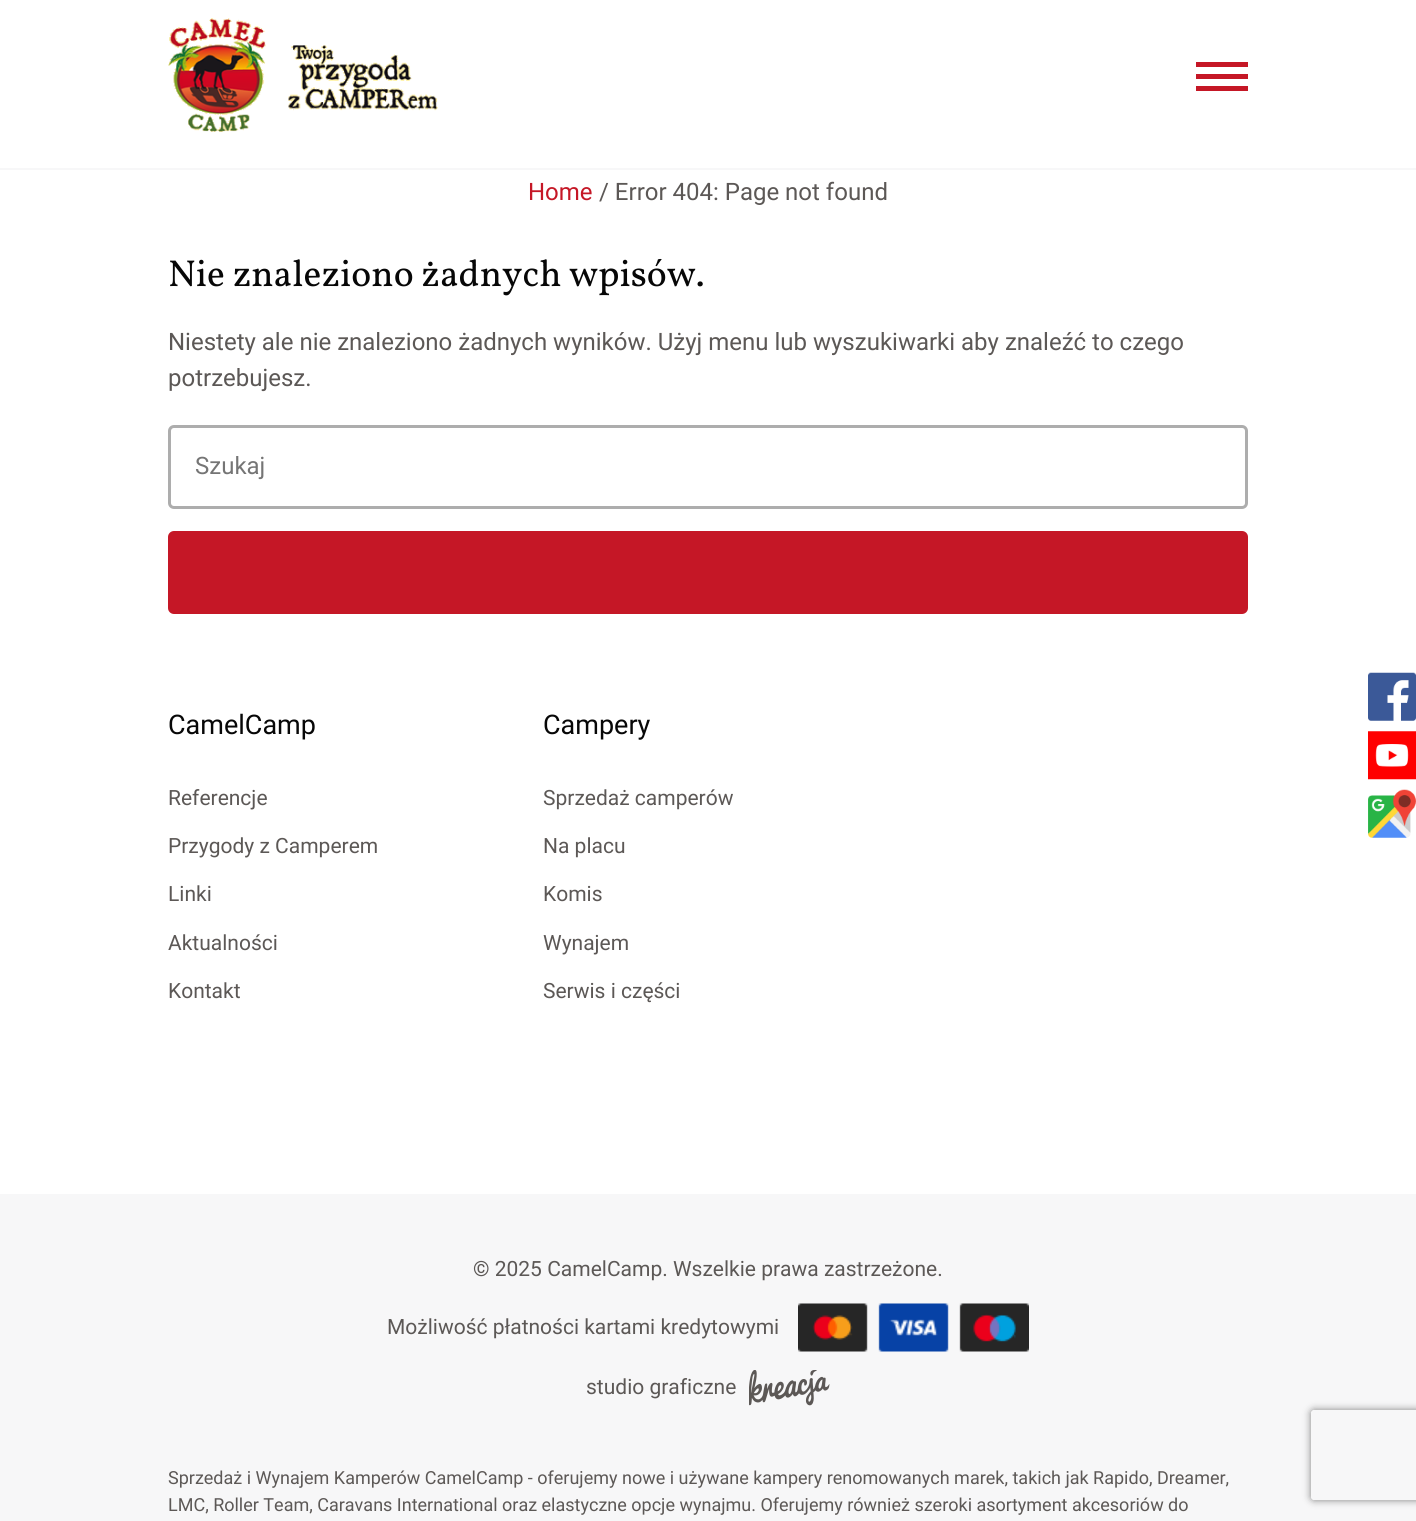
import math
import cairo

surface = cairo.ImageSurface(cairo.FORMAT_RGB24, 1416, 1521)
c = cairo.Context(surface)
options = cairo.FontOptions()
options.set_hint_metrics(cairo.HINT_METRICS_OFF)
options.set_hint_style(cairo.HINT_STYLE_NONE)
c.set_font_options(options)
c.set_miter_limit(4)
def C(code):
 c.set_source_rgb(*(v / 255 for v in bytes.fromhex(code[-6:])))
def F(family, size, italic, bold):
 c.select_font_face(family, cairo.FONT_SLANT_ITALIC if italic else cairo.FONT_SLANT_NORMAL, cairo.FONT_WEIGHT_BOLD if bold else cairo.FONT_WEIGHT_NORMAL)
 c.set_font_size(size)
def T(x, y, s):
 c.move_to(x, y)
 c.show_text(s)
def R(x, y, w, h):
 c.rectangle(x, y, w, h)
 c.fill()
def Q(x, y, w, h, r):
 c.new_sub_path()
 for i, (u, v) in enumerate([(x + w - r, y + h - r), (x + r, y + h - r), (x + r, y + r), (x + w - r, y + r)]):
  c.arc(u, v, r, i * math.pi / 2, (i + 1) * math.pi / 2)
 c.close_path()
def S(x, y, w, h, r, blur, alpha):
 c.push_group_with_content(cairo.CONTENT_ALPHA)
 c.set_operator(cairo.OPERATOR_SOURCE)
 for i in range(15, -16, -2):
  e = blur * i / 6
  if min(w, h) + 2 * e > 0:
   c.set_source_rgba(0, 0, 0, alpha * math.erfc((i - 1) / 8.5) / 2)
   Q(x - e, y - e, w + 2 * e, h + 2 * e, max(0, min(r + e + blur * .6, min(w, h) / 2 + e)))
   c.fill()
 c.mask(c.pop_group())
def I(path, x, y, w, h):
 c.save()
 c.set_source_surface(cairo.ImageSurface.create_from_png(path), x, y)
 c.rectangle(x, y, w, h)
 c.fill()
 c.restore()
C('ffffff')
c.paint()
C('f7f7f8')
R(0,168,1416,2)
I('1.png',168,18,270,114)
C('c51726')
R(1196,62,52,5)
R(1196,74,52,5)
R(1196,86,52,5)
F('Roboto',24,0,0)
T(528,200,'Home')
C('5c5856')
T(599,200,'/ Error 404: Page not found')
F('Vollkorn',37.5,0,0)
C('070707')
T(168,286,'Nie znaleziono żadnych wpisów.')
F('Roboto',24,0,0)
C('5c5856')
T(168,350,'Niestety ale nie znaleziono żadnych wyników. Użyj menu lub wyszukiwarki aby znaleźć to czego')
T(168,386,'potrzebujesz.')
Q(169.5,426.5,1077,81,4.5)
C('adadad')
c.set_line_width(3)
c.stroke()
C('757575')
T(195,474,'Szukaj')
C('c51726')
Q(168,531,1080,83,6)
c.fill()
F('Roboto',27,0,0)
C('070707')
T(168,734,'CamelCamp')
F('Roboto',21,0,0)
C('5c5856')
T(168,805,'Referencje')
T(168,853,'Przygody z Camperem')
T(168,901,'Linki')
T(168,950,'Aktualności')
T(168,998,'Kontakt')
F('Roboto',27,0,0)
C('070707')
T(543,734,'Campery')
F('Roboto',21,0,0)
C('5c5856')
T(543,805,'Sprzedaż camperów')
T(543,853,'Na placu')
T(543,901,'Komis')
T(543,950,'Wynajem')
T(543,998,'Serwis i części')
C('f7f7f8')
R(0,1194,1416,327)
C('5c5856')
T(473,1276,'© 2025 CamelCamp. Wszelkie prawa zastrzeżone.')
T(387,1334,'Możliwość płatności kartami kredytowymi')
I('2.png',798,1303,231,49)
T(586,1394,'studio graficzne')
I('3.png',749,1370,81,36)
F('Roboto',18,0,0)
T(168,1484,'Sprzedaż i Wynajem Kamperów CamelCamp - oferujemy nowe i używane kampery renomowanych marek, takich jak Rapido, Dreamer,')
T(168,1511,'LMC, Roller Team, Caravans International oraz elastyczne opcje wynajmu. Oferujemy również szeroki asortyment akcesoriów do')
I('4.png',1368,672,48,49)
I('5.png',1368,731,48,49)
I('6.png',1368,789,48,49)
c.save()
c.set_fill_rule(cairo.FILL_RULE_EVEN_ODD)
c.new_path()
c.move_to(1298,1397)
c.line_to(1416,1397)
c.line_to(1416,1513)
c.line_to(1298,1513)
c.close_path()
c.move_to(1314,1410)
c.line_to(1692,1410)
c.curve_to(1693.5,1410,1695,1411.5,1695,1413)
c.line_to(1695,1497)
c.curve_to(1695,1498.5,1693.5,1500,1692,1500)
c.line_to(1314,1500)
c.curve_to(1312.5,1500,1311,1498.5,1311,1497)
c.line_to(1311,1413)
c.curve_to(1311,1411.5,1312.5,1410,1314,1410)
c.close_path()
c.clip()
C('808080')
S(1311,1410,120,90,3,4,1)
c.restore()
surface.write_to_png('o.png')
